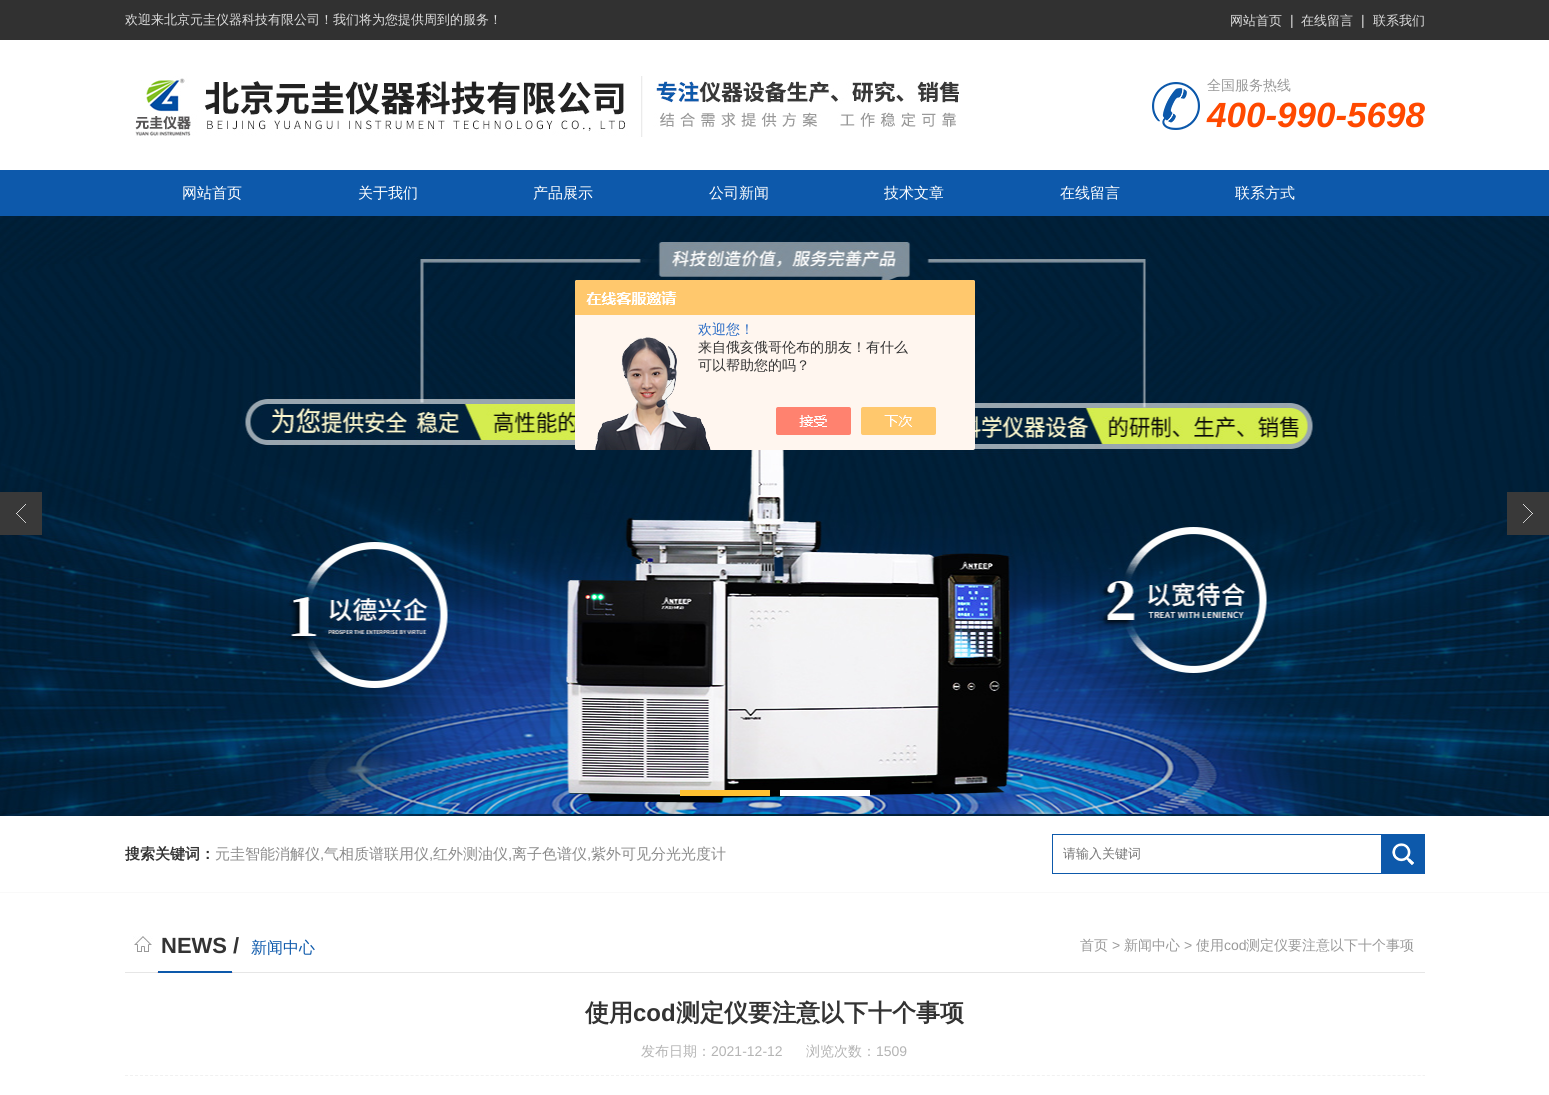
import math
import cairo

surface = cairo.ImageSurface(cairo.FORMAT_RGB24, 1549, 1095)
c = cairo.Context(surface)
options = cairo.FontOptions()
options.set_hint_metrics(cairo.HINT_METRICS_OFF)
options.set_hint_style(cairo.HINT_STYLE_NONE)
c.set_font_options(options)
c.set_miter_limit(4)
def C(code):
 c.set_source_rgb(*(v / 255 for v in bytes.fromhex(code[-6:])))
def F(family, size, italic, bold):
 c.select_font_face(family, cairo.FONT_SLANT_ITALIC if italic else cairo.FONT_SLANT_NORMAL, cairo.FONT_WEIGHT_BOLD if bold else cairo.FONT_WEIGHT_NORMAL)
 c.set_font_size(size)
def T(x, y, s):
 c.move_to(x, y)
 c.show_text(s)
def R(x, y, w, h):
 c.rectangle(x, y, w, h)
 c.fill()
def I(path, x, y, w, h):
 c.save()
 c.set_source_surface(cairo.ImageSurface.create_from_png(path), x, y)
 c.rectangle(x, y, w, h)
 c.fill()
 c.restore()
C('ffffff')
c.paint()
C('313131')
R(0,0,1549,40)
F('WenQuanYi Zen Hei Medium',13,0,0)
C('dddddd')
T(125,24,'欢迎来北京元圭仪器科技有限公司！我们将为您提供周到的服务！')
T(1230,25,'网站首页')
F('Liberation Sans',14,0,0)
T(1290,25,'|')
F('WenQuanYi Zen Hei Medium',13,0,0)
T(1301,25,'在线留言')
F('Liberation Sans',14,0,0)
T(1361,25,'|')
F('WenQuanYi Zen Hei Medium',13,0,0)
T(1373,25,'联系我们')
I('1.png',135,76,824,61)
I('2.png',1152,82,48,48)
F('WenQuanYi Zen Hei Medium',14,0,0)
C('999999')
T(1207,90,'全国服务热线')
F('Liberation Sans',35,1,1)
C('ff4900')
T(1207,127,'400-990-5698')
C('0d59ab')
R(0,170,1549,46)
F('WenQuanYi Zen Hei Medium',15,0,0)
C('ffffff')
T(182,198,'网站首页')
T(358,198,'关于我们')
T(533,198,'产品展示')
T(709,198,'公司新闻')
T(884,198,'技术文章')
T(1060,198,'在线留言')
T(1235,198,'联系方式')
I('3.png',0,216,1549,600)
C('393939')
R(0,492,42,43)
I('4.png',16,504,10,19)
R(1507,492,42,43)
I('5.png',1523,504,10,19)
C('ffc131')
R(680,790,90,6)
C('ffffff')
R(780,790,90,6)
I('6.png',575,280,400,170)
F('WenQuanYi Zen Hei Medium',14,0,0)
C('2e6ec6')
T(698,334,'欢迎您！')
C('333333')
T(698,352,'来自俄亥俄哥伦布的朋友！有什么')
T(698,370,'可以帮助您的吗？')
C('f9f9f9')
R(0,892,1549,1)
c.save()
c.rectangle(125,834,830,40)
c.clip()
F('WenQuanYi Zen Hei',15,0,1)
C('333333')
T(125,859,'搜索关键词：')
c.restore()
F('WenQuanYi Zen Hei Medium',15,0,0)
C('8b8b8b')
T(215,859,'元圭智能消解仪')
F('Liberation Sans',15,0,0)
T(320,859,',')
F('WenQuanYi Zen Hei Medium',15,0,0)
T(324,859,'气相质谱联用仪')
F('Liberation Sans',15,0,0)
T(429,859,',')
F('WenQuanYi Zen Hei Medium',15,0,0)
T(433,859,'红外测油仪')
F('Liberation Sans',15,0,0)
T(508,859,',')
F('WenQuanYi Zen Hei Medium',15,0,0)
T(512,859,'离子色谱仪')
F('Liberation Sans',15,0,0)
T(587,859,',')
F('WenQuanYi Zen Hei Medium',15,0,0)
T(591,859,'紫外可见分光光度计')
C('0d59ab')
R(1052,834,373,40)
C('ffffff')
R(1053,835,328,38)
F('WenQuanYi Zen Hei Medium',13,0,0)
C('757575')
T(1063,858,'请输入关键词')
I('7.png',1392,843,22,22)
I('8.png',125,936,1300,37)
F('Liberation Sans',22,0,1)
C('333333')
T(161,953,'NEWS /')
F('WenQuanYi Zen Hei Medium',16,0,0)
C('0d59ab')
T(251,953,'新闻中心')
F('WenQuanYi Zen Hei Medium',14,0,0)
C('999999')
T(1080,950,'首页')
F('Liberation Sans',14,0,0)
T(1112,950,'>')
F('WenQuanYi Zen Hei Medium',14,0,0)
T(1124,950,'新闻中心')
F('Liberation Sans',14,0,0)
T(1184,950,'>')
F('WenQuanYi Zen Hei Medium',14,0,0)
T(1196,950,'使用')
F('Liberation Sans',14,0,0)
T(1224,950,'cod')
F('WenQuanYi Zen Hei Medium',14,0,0)
T(1246,950,'测定仪要注意以下十个事项')
F('WenQuanYi Zen Hei',24,0,1)
C('333333')
T(585,1021,'使用')
F('Liberation Sans',24,0,1)
T(633,1021,'cod')
F('WenQuanYi Zen Hei',24,0,1)
T(676,1021,'测定仪要注意以下十个事项')
c.new_path()
c.move_to(125,1075.5)
c.line_to(1425,1075.5)
C('f1f1f1')
c.set_line_width(1)
c.set_dash([3,2.01])
c.stroke()
F('WenQuanYi Zen Hei Medium',14,0,0)
C('b4b4b4')
T(641,1056,'发布日期：')
F('Liberation Sans',14,0,0)
T(711,1056,'2021-12-12')
F('WenQuanYi Zen Hei Medium',14,0,0)
T(806,1056,'浏览次数：')
F('Liberation Sans',14,0,0)
T(876,1056,'1509')
surface.write_to_png('o.png')
